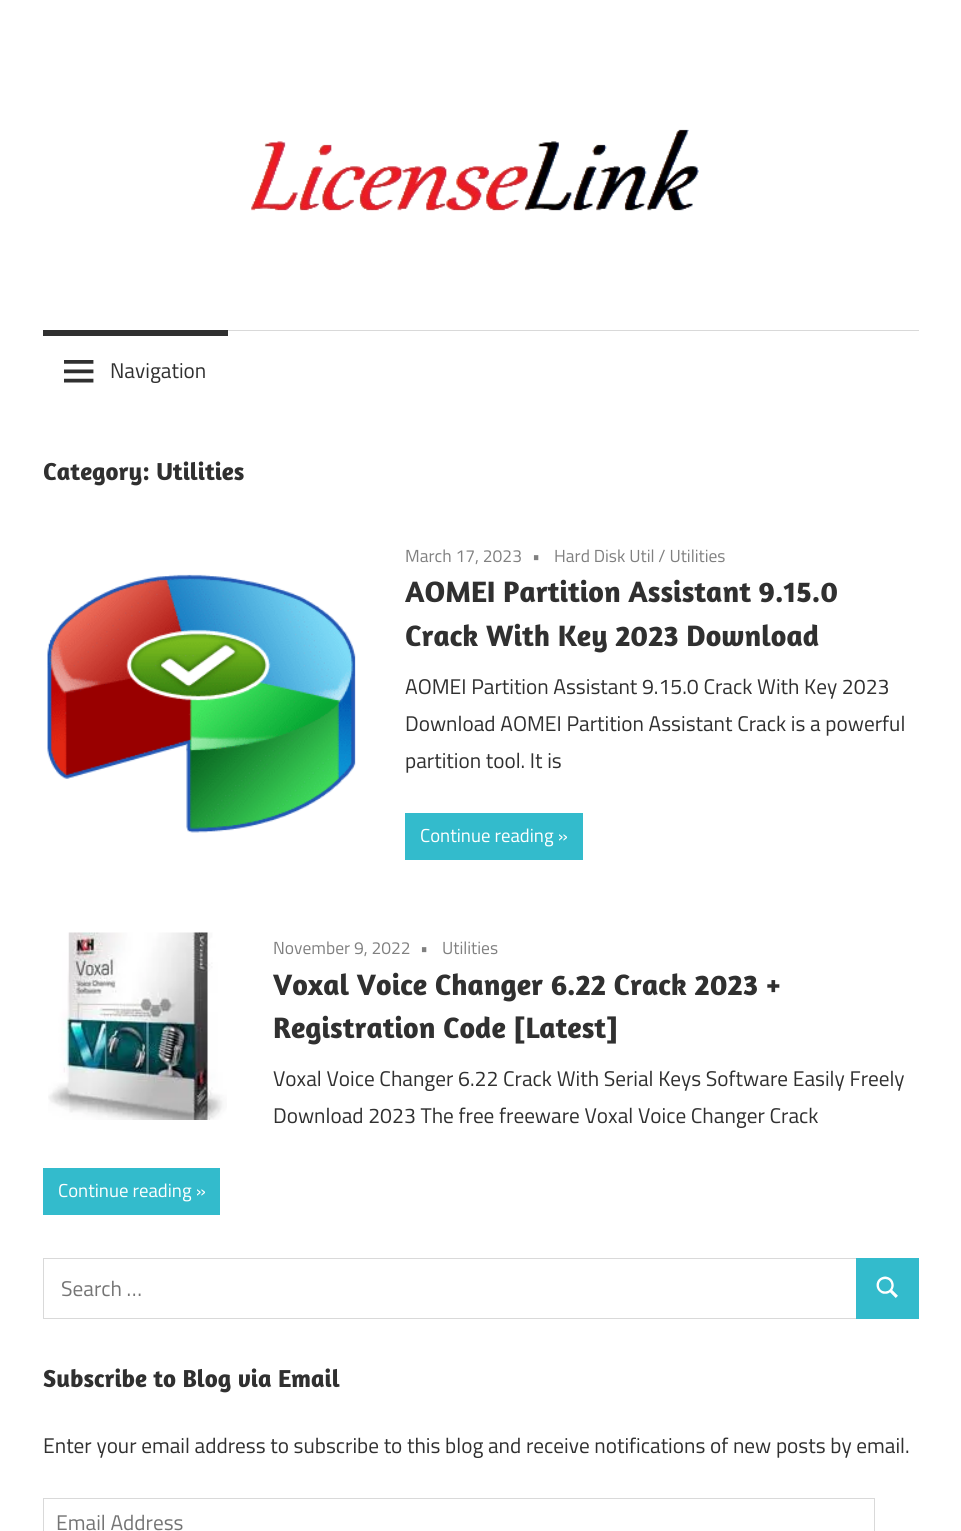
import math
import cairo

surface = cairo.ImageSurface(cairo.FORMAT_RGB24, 961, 1531)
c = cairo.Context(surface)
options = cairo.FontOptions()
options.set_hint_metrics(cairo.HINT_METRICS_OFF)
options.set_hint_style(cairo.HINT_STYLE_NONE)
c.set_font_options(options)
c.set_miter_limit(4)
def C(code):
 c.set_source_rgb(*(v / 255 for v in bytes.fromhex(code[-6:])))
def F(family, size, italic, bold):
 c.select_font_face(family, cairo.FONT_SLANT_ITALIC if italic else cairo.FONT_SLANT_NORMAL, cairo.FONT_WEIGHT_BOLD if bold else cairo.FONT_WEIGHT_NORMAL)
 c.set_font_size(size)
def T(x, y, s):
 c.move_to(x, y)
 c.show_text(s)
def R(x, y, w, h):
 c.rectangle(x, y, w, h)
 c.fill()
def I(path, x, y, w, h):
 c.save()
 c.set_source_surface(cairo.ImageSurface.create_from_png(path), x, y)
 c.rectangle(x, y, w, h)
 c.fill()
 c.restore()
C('ffffff')
c.paint()
I('1.png',251,129,448,82)
C('d9d9d9')
R(228,330,691,1)
C('303030')
R(43,330,185,6)
I('2.png',64,360,30,23)
F('Titillium Web',21.25,0,0)
T(110,378,'Navigation')
F('Amaranth',25,0,1)
T(43,480,'Category: Utilities')
I('3.png',47,574,309,259)
F('Titillium Web',17.5,0,0)
C('808080')
T(405,562,'March 17, 2023')
T(532,562,'•')
T(554,562,'Hard Disk Util / Utilities')
F('Amaranth',30,0,1)
C('303030')
T(405,602,'AOMEI Partition Assistant 9.15.0')
T(405,646,'Crack With Key 2023 Download')
F('Titillium Web',21.25,0,0)
T(405,694,'AOMEI Partition Assistant 9.15.0 Crack With Key 2023')
T(405,731,'Download AOMEI Partition Assistant Crack is a powerful')
T(405,768,'partition tool. It is')
C('33bbcc')
R(405,813,178,47)
F('Titillium Web',18.75,0,0)
C('ffffff')
T(420,842,'Continue reading »')
I('4.png',48,932,179,188)
F('Titillium Web',17.5,0,0)
C('808080')
T(273,954,'November 9, 2022')
T(420,954,'•')
T(442,954,'Utilities')
F('Amaranth',30,0,1)
C('303030')
T(273,995,'Voxal Voice Changer 6.22 Crack 2023 +')
T(273,1038,'Registration Code [Latest]')
F('Titillium Web',21.25,0,0)
T(273,1086,'Voxal Voice Changer 6.22 Crack With Serial Keys Software Easily Freely')
T(273,1123,'Download 2023 The free freeware Voxal Voice Changer Crack')
C('33bbcc')
R(43,1168,177,47)
F('Titillium Web',18.75,0,0)
C('ffffff')
T(58,1197,'Continue reading »')
c.rectangle(43.5,1258.5,814,60)
C('d9d9d9')
c.set_line_width(1)
c.stroke()
F('Titillium Web',21.25,0,0)
C('757575')
T(61,1296,'Search …')
C('33bbcc')
R(856,1258,63,61)
I('5.png',876,1276,22,22)
F('Amaranth',25,0,1)
C('303030')
T(43,1387,'Subscribe to Blog via Email')
F('Titillium Web',21.25,0,0)
T(43,1453,'Enter your email address to subscribe to this blog and receive notifications of new posts by email.')
c.rectangle(43.5,1498.5,831,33)
C('d9d9d9')
c.stroke()
C('757575')
T(56,1530,'Email Address')
surface.write_to_png('o.png')
